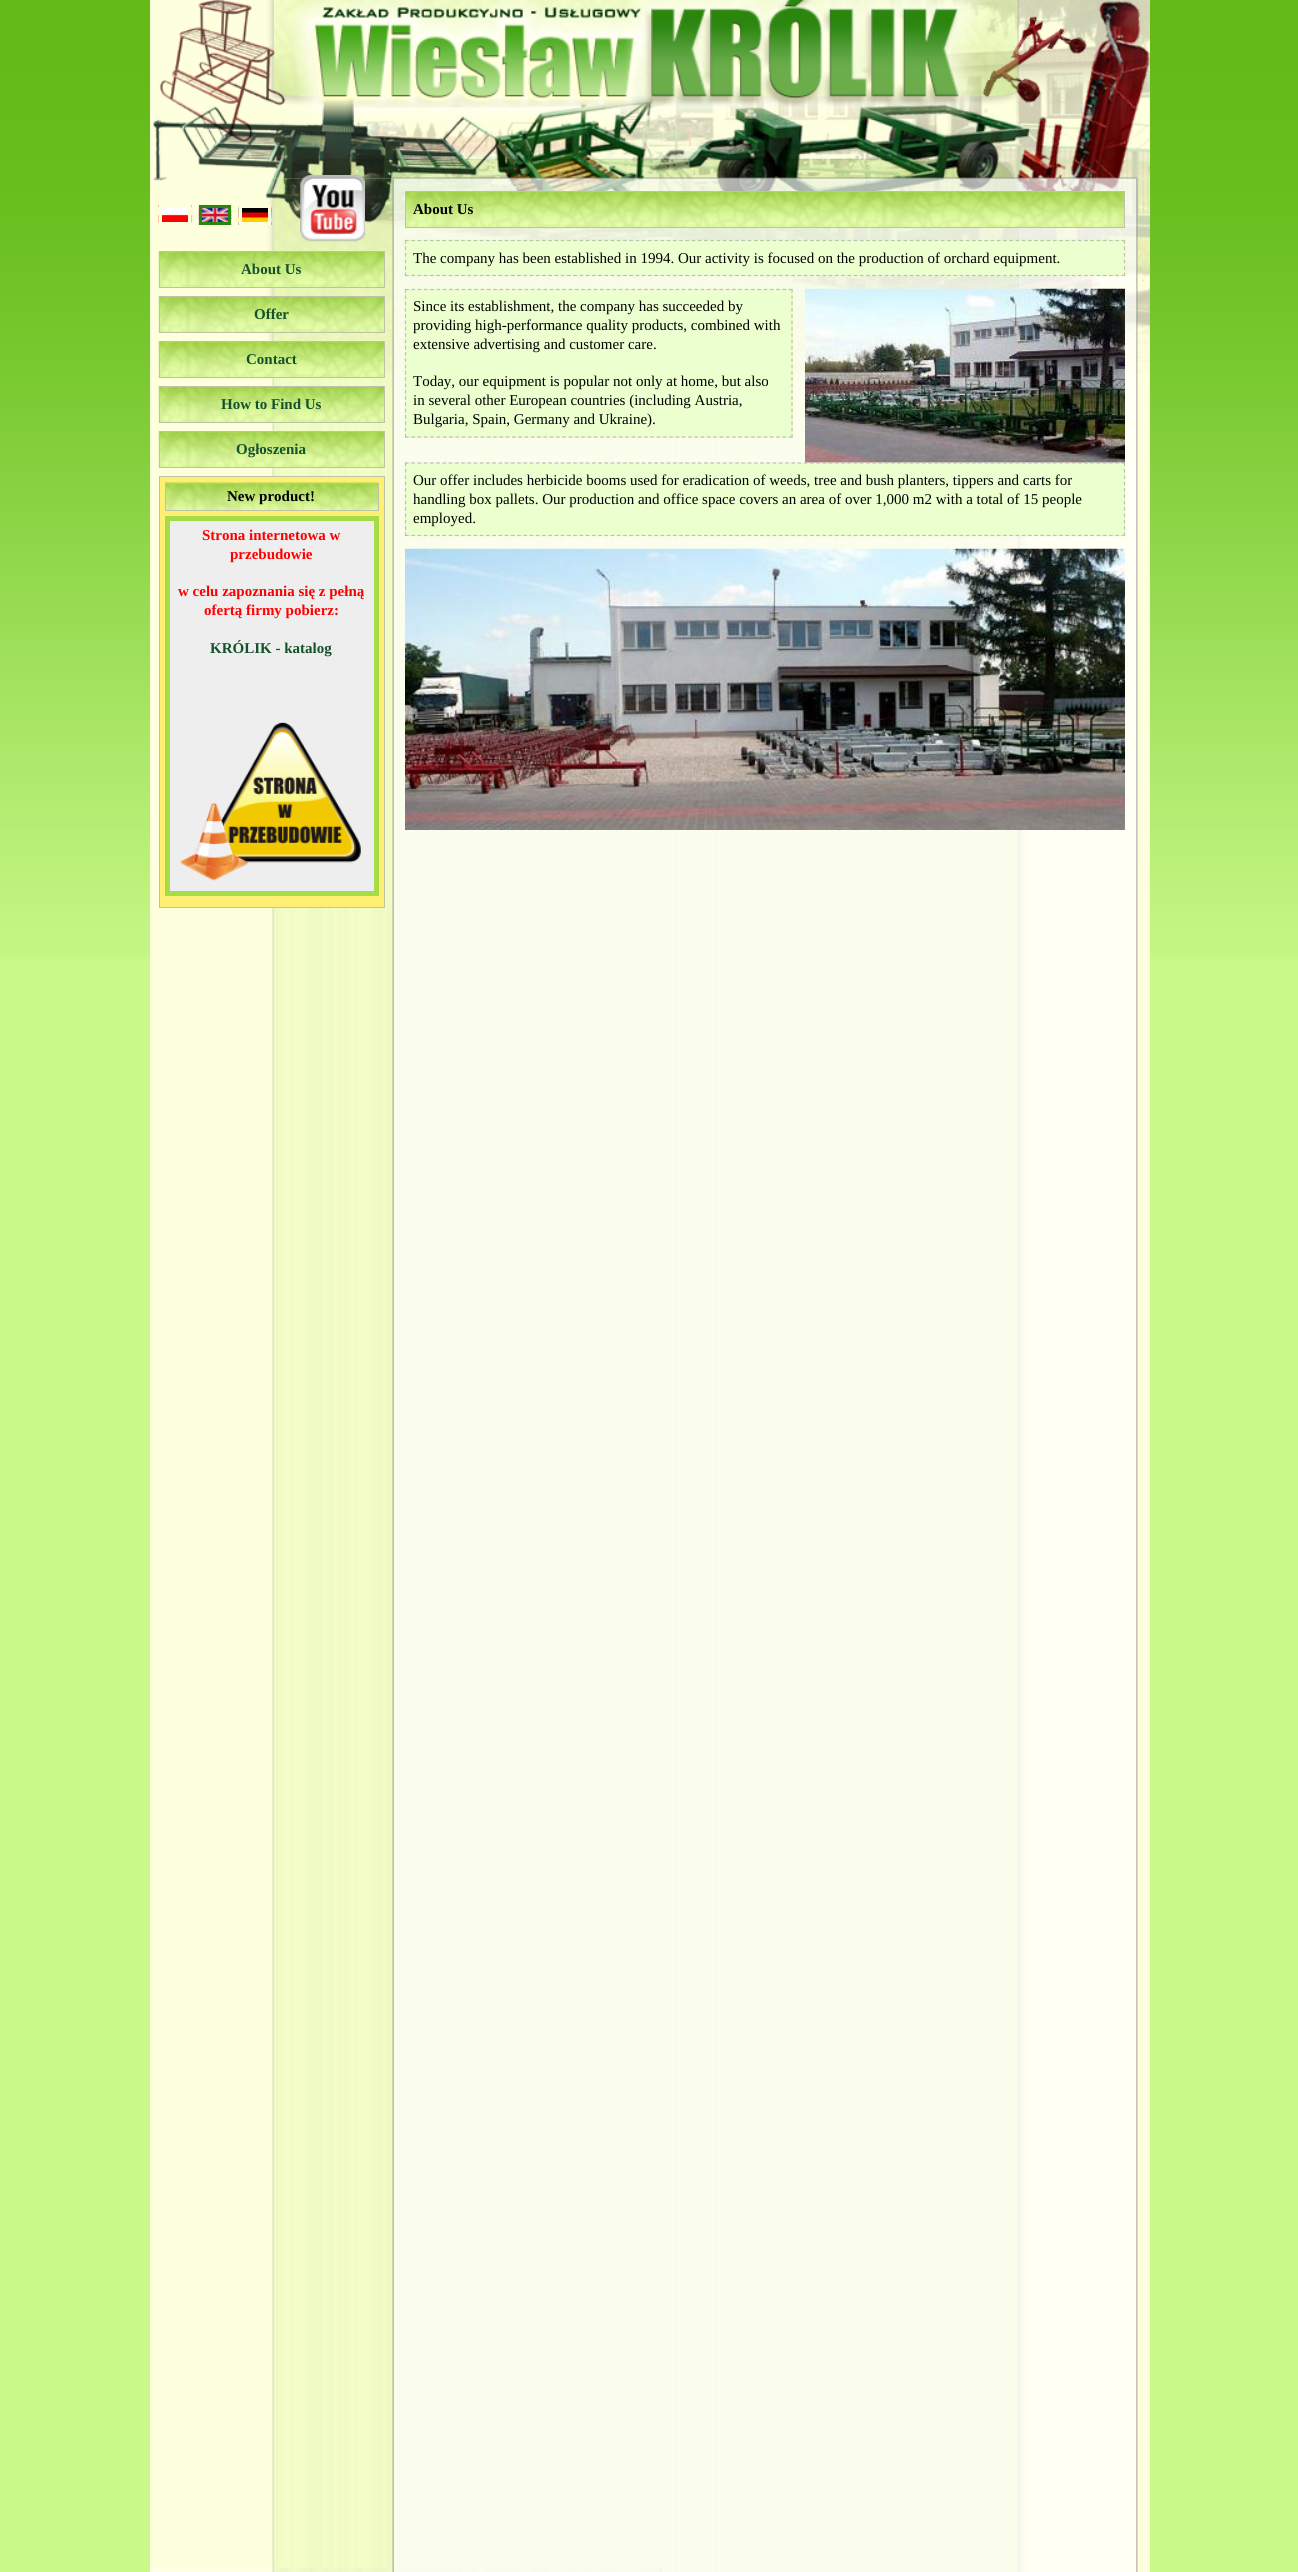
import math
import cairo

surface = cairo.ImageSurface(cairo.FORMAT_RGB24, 1298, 2572)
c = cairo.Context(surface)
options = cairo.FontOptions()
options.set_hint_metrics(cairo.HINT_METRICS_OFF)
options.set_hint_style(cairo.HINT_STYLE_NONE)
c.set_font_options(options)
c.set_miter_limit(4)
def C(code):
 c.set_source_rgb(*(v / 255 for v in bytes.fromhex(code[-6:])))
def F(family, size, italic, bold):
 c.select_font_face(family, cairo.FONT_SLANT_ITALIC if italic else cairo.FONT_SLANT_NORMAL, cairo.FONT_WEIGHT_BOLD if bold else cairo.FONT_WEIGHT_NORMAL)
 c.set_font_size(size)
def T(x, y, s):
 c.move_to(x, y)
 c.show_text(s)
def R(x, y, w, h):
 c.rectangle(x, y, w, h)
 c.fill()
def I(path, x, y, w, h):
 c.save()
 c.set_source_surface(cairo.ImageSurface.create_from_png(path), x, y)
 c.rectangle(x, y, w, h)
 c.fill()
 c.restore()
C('c9f989')
c.paint()
I('1.png',0,0,1298,959)
I('2.png',150,0,1000,2572)
I('3.png',152,0,998,179)
I('4.png',153,178,997,195)
I('5.png',150,2567,512,5)
I('6.png',158,205,34,20)
c.rectangle(160.5,206.5,29,17)
C('feffdc')
c.set_line_width(3)
c.stroke()
I('7.png',198,205,34,20)
c.rectangle(200.5,206.5,29,17)
C('2a860d')
c.stroke()
I('8.png',238,205,34,20)
c.rectangle(240.5,206.5,29,17)
C('feffdc')
c.stroke()
I('9.png',300,175,65,67)
I('10.png',158,251,226,37)
c.rectangle(159.5,251.5,225,36)
C('bdc2a8')
c.set_line_width(1)
c.stroke()
F('Liberation Serif',15,0,1)
C('14522b')
T(241,274,'About Us')
I('11.png',158,296,226,37)
c.rectangle(159.5,296.5,225,36)
C('bdc2a8')
c.stroke()
C('14522b')
T(254,319,'Offer')
I('12.png',158,341,226,37)
c.rectangle(159.5,341.5,225,36)
C('bdc2a8')
c.stroke()
C('14522b')
T(246,364,'Contact')
I('13.png',158,386,226,37)
c.rectangle(159.5,386.5,225,36)
C('bdc2a8')
c.stroke()
C('14522b')
T(221,409,'How to Find Us')
I('13.png',158,431,226,37)
c.rectangle(159.5,431.5,225,36)
C('bdc2a8')
c.stroke()
C('14522b')
T(236,454,'Ogłoszenia')
C('ffef72')
c.rectangle(159.5,476.5,225,431)
c.fill_preserve()
C('bdc2a8')
c.stroke()
I('14.png',165,482,214,30)
c.rectangle(165.5,483.5,213,27)
c.stroke()
C('000000')
T(227,501,'New product!')
C('efeeee')
c.rectangle(167.5,518.5,209,375)
c.fill_preserve()
C('a5dc47')
c.set_line_width(5)
c.stroke()
C('ff0000')
T(202,540,'Strona internetowa w')
T(230,559,'przebudowie')
T(178,596,'w celu zapoznania się z pełną')
T(204,615,'ofertą firmy pobierz:')
C('14522b')
T(210,653,'KRÓLIK - katalog')
I('15.png',180,722,181,159)
I('16.png',406,192,718,35)
c.rectangle(405.5,191.5,719,36)
C('bdc2a8')
c.set_line_width(1)
c.stroke()
C('000000')
T(413,214,'About Us')
C('ebffcf')
R(405,240,720,36)
c.new_path()
c.move_to(405,240.5)
c.line_to(1125,240.5)
C('bdc2a8')
c.set_line_width(1.2)
c.set_dash([3.75,2.48])
c.stroke()
c.new_path()
c.move_to(1124.5,240)
c.line_to(1124.5,276)
c.set_dash([3.75,2.75])
c.stroke()
c.new_path()
c.move_to(405,275.5)
c.line_to(1125,275.5)
c.set_dash([3.75,2.48])
c.stroke()
c.new_path()
c.move_to(405.5,240)
c.line_to(405.5,276)
c.set_dash([3.75,2.75])
c.stroke()
F('Liberation Serif',15,0,0)
C('000000')
T(413,263,'The company has been established in 1994. Our activity is focused on the production of orchard equipment.')
C('ebffcf')
R(405,289,388,149)
c.new_path()
c.move_to(405,289.5)
c.line_to(792.5,289.5)
C('bdc2a8')
c.set_dash([3.75,2.54])
c.stroke()
c.new_path()
c.move_to(792,289)
c.line_to(792,437.5)
c.set_dash([3.75,2.55])
c.stroke()
c.new_path()
c.move_to(405,437)
c.line_to(792.5,437)
c.set_dash([3.75,2.54])
c.stroke()
c.new_path()
c.move_to(405.5,289)
c.line_to(405.5,437.5)
c.set_dash([3.75,2.55])
c.stroke()
C('000000')
T(413,311,'Since its establishment, the company has succeeded by')
T(413,330,'providing high-performance quality products, combined with')
T(413,349,'extensive advertising and customer care.')
T(413,386,'Today, our equipment is popular not only at home, but also')
T(413,405,'in several other European countries (including Austria,')
T(413,424,'Bulgaria, Spain, Germany and Ukraine).')
I('17.png',805,288,320,175)
C('ebffcf')
R(405,463,720,73)
c.new_path()
c.move_to(405,463)
c.line_to(1125,463)
C('bdc2a8')
c.set_dash([3.75,2.48])
c.stroke()
c.new_path()
c.move_to(1124.5,462.5)
c.line_to(1124.5,536)
c.set_dash([3.75,2.61])
c.stroke()
c.new_path()
c.move_to(405,535.5)
c.line_to(1125,535.5)
c.set_dash([3.75,2.48])
c.stroke()
c.new_path()
c.move_to(405.5,462.5)
c.line_to(405.5,536)
c.set_dash([3.75,2.61])
c.stroke()
C('000000')
T(413,485,'Our offer includes herbicide booms used for eradication of weeds, tree and bush planters, tippers and carts for')
T(413,504,'handling box pallets. Our production and office space covers an area of over 1,000 m2 with a total of 15 people')
T(413,523,'employed.')
I('18.png',405,548,720,282)
surface.write_to_png('o.png')
